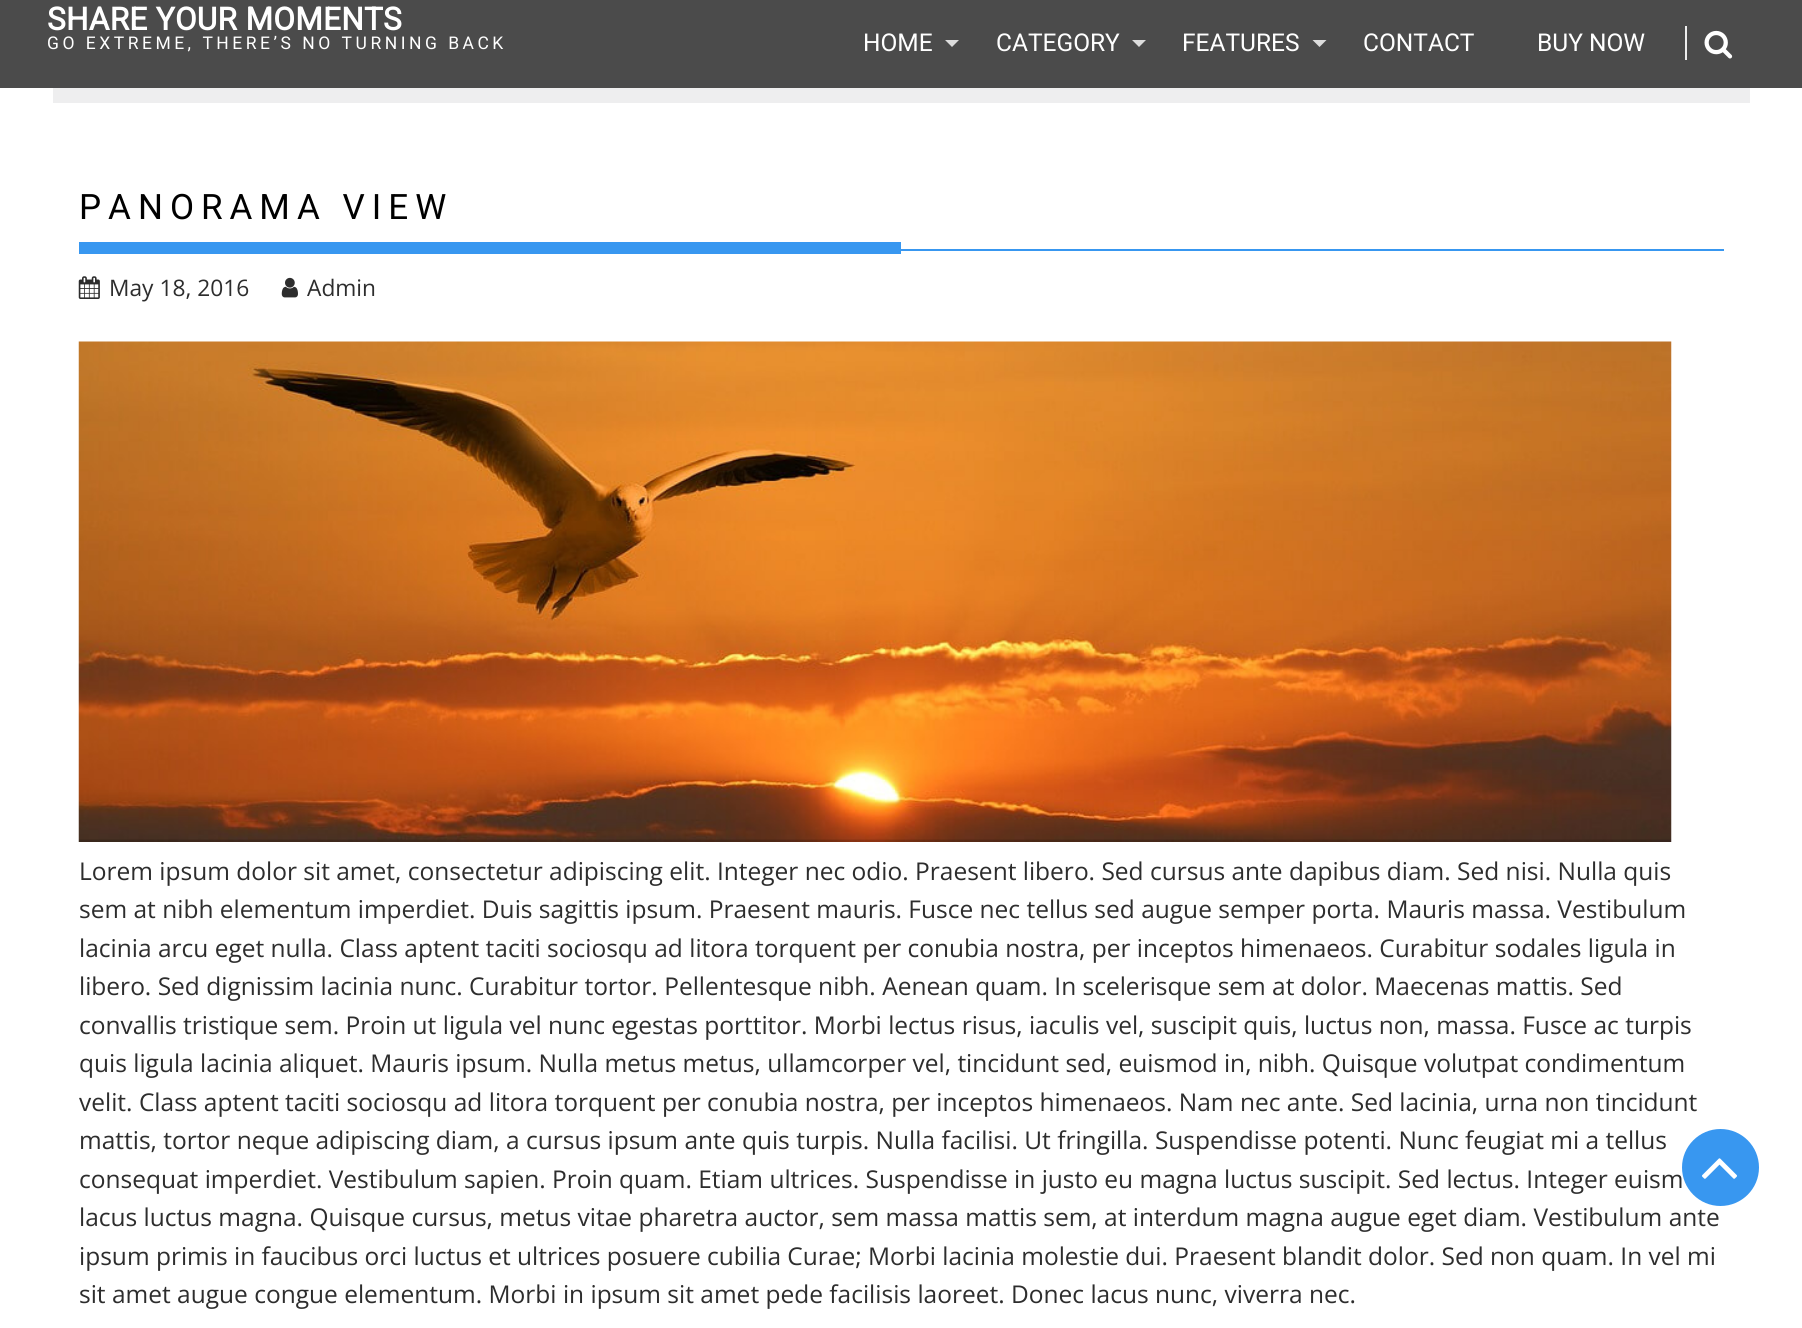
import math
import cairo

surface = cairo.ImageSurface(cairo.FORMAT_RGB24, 1802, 1328)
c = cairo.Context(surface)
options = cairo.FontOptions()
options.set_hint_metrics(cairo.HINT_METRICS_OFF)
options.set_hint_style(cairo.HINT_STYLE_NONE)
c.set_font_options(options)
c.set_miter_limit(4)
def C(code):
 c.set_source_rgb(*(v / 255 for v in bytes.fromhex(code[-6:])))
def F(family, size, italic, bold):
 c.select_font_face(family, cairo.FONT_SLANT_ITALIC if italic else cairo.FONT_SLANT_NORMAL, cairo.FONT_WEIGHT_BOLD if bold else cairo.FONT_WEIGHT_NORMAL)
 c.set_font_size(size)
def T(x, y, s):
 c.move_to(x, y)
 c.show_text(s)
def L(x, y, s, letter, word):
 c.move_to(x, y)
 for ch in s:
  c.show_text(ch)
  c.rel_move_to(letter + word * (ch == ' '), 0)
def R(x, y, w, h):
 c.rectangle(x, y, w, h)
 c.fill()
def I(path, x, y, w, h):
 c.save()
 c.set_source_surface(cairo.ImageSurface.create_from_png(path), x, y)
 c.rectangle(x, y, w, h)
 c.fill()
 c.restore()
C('ffffff')
c.paint()
C('4b4b4b')
R(0,0,1802,88)
F('Roboto',31.5,0,1)
C('ffffff')
L(47,30,'SHARE YOUR MOMENTS',.3,0)
F('Roboto',17.5,0,0)
L(47,49,'GO EXTREME, THERE’S NO TURNING BACK',3.5,0)
F('Roboto',24.5,0,0)
T(863,51,'HOME')
C('dddddd')
c.new_path()
c.move_to(945,40)
c.line_to(959,40)
c.line_to(952,47)
c.close_path()
c.fill()
C('ffffff')
T(996,51,'CATEGORY')
C('dddddd')
c.new_path()
c.move_to(1132,40)
c.line_to(1146,40)
c.line_to(1139,47)
c.close_path()
c.fill()
C('ffffff')
T(1182,51,'FEATURES')
C('dddddd')
c.new_path()
c.move_to(1312.5,40)
c.line_to(1326.5,40)
c.line_to(1319.5,47)
c.close_path()
c.fill()
C('ffffff')
T(1363,51,'CONTACT')
T(1537,51,'BUY NOW')
C('eeeeee')
R(1685,26,2,34)
I('1.png',1704,30,29,29)
C('eeeeef')
R(53,88,1697,15)
C('3897f0')
R(901,249,823,2)
F('Roboto',35,0,0)
C('000000')
L(79,219,'PANORAMA VIEW',7,0)
C('3897f0')
R(79,242,822,12)
I('2.png',78,276,22,23)
F('Open Sans',22.75,0,0)
C('2d2d2d')
T(109,296,'May 18, 2016')
I('3.png',281,277,17,21)
T(307,296,'Admin')
I('4.png',78,341,1594,501)
F('Open Sans',24.5,0,0)
T(79,880,'Lorem ipsum dolor sit amet, consectetur adipiscing elit. Integer nec odio. Praesent libero. Sed cursus ante dapibus diam. Sed nisi. Nulla quis')
T(79,918,'sem at nibh elementum imperdiet. Duis sagittis ipsum. Praesent mauris. Fusce nec tellus sed augue semper porta. Mauris massa. Vestibulum')
T(79,957,'lacinia arcu eget nulla. Class aptent taciti sociosqu ad litora torquent per conubia nostra, per inceptos himenaeos. Curabitur sodales ligula in')
T(79,995,'libero. Sed dignissim lacinia nunc. Curabitur tortor. Pellentesque nibh. Aenean quam. In scelerisque sem at dolor. Maecenas mattis. Sed')
T(79,1034,'convallis tristique sem. Proin ut ligula vel nunc egestas porttitor. Morbi lectus risus, iaculis vel, suscipit quis, luctus non, massa. Fusce ac turpis')
T(79,1072,'quis ligula lacinia aliquet. Mauris ipsum. Nulla metus metus, ullamcorper vel, tincidunt sed, euismod in, nibh. Quisque volutpat condimentum')
T(79,1111,'velit. Class aptent taciti sociosqu ad litora torquent per conubia nostra, per inceptos himenaeos. Nam nec ante. Sed lacinia, urna non tincidunt')
T(79,1149,'mattis, tortor neque adipiscing diam, a cursus ipsum ante quis turpis. Nulla facilisi. Ut fringilla. Suspendisse potenti. Nunc feugiat mi a tellus')
T(79,1188,'consequat imperdiet. Vestibulum sapien. Proin quam. Etiam ultrices. Suspendisse in justo eu magna luctus suscipit. Sed lectus. Integer euism')
T(79,1226,'lacus luctus magna. Quisque cursus, metus vitae pharetra auctor, sem massa mattis sem, at interdum magna augue eget diam. Vestibulum ante')
T(79,1265,'ipsum primis in faucibus orci luctus et ultrices posuere cubilia Curae; Morbi lacinia molestie dui. Praesent blandit dolor. Sed non quam. In vel mi')
T(79,1303,'sit amet augue congue elementum. Morbi in ipsum sit amet pede facilisis laoreet. Donec lacus nunc, viverra nec.')
C('3897f0')
c.new_path()
c.arc(1720.5,1167.5,38.5,0,2 * math.pi)
c.fill()
I('5.png',1702,1158,35,21)
surface.write_to_png('o.png')
